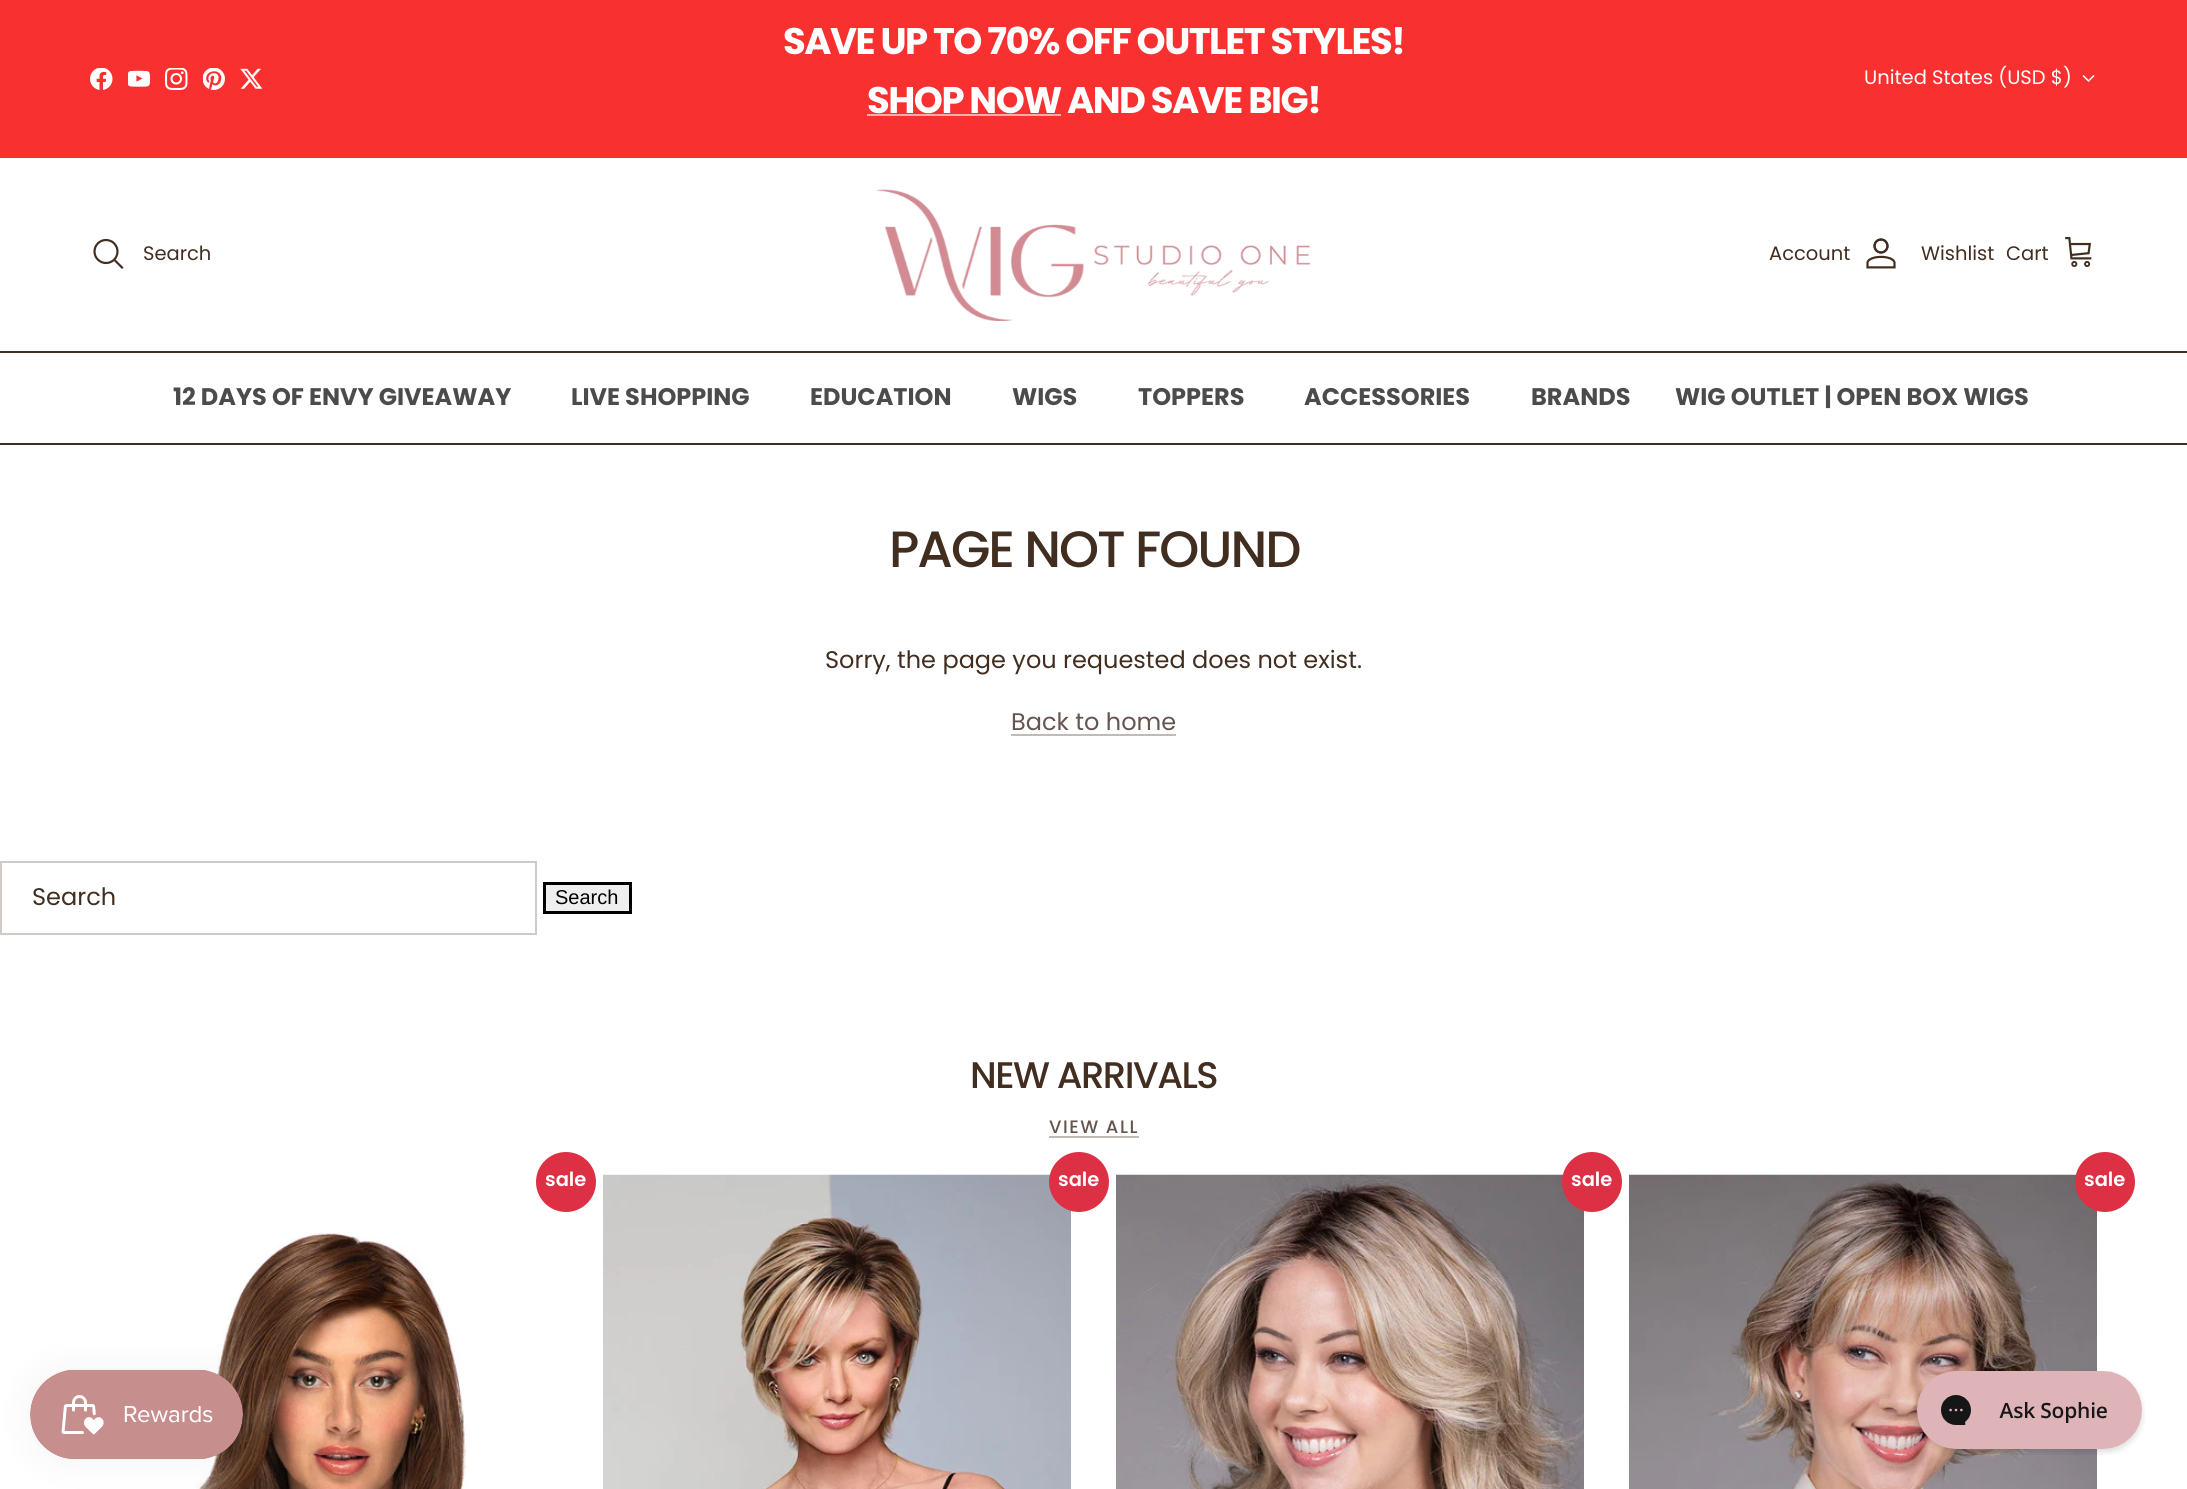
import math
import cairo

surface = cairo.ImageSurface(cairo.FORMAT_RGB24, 2187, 1489)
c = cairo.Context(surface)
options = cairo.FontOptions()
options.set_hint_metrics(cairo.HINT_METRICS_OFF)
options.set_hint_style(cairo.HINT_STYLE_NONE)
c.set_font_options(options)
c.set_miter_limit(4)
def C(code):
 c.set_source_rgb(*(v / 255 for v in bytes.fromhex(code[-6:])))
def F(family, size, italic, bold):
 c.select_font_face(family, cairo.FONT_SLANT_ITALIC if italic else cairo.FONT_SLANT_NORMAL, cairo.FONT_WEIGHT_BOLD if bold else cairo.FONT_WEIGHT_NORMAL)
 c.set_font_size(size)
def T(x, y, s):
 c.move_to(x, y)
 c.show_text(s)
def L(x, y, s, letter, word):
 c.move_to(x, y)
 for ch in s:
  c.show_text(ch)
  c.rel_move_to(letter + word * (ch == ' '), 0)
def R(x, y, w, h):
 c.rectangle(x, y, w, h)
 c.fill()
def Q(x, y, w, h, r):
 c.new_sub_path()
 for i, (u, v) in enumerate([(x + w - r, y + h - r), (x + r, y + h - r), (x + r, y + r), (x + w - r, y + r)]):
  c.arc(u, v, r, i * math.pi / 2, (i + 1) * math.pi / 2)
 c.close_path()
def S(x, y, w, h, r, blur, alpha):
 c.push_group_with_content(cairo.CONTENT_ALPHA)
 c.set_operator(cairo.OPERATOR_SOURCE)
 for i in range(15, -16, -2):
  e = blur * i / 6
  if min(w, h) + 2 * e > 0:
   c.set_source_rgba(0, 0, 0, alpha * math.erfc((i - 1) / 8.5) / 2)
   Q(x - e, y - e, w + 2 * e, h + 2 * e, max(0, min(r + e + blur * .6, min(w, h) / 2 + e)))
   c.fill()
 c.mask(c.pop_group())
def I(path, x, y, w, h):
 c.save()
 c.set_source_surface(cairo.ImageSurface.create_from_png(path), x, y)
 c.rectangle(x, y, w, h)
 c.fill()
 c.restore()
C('ffffff')
c.paint()
C('f93030')
R(0,0,2187,158)
I('1.png',90,68,23,22)
I('2.png',128,70,22,17)
I('3.png',165,68,23,22)
I('4.png',203,68,22,22)
I('5.png',240,68,23,21)
F('Poppins',37,0,1)
C('ffffff')
L(783,54,'SAVE UP TO 70% OFF OUTLET STYLES!',-1.5,0)
L(867,113,'SHOP NOW AND SAVE BIG!',-1.5,0)
C('fdacac')
R(867,114,194,2)
F('Poppins',19.5,0,0)
C('ffffff')
T(1864,84,'United States (USD $)')
c.new_path()
c.move_to(2094,75.5)
c.line_to(2088.5,81)
c.line_to(2083,75.5)
c.set_line_width(1.5)
c.stroke()
C('422e20')
R(0,351,2187,2)
c.arc(106,251.5,11.5,0,2 * math.pi)
c.set_line_width(2.2)
c.stroke()
T(143,260,'Search')
c.new_path()
c.move_to(115.5,261)
c.line_to(122,267.5)
c.set_line_cap(cairo.LINE_CAP_SQUARE)
c.stroke()
I('6.png',876,189,435,132)
T(1769,260,'Account')
I('7.png',1866,238,30,31)
T(1921,260,'Wishlist')
T(2006,260,'Cart')
I('8.png',2065,237,27,30)
R(0,443,2187,2)
F('Poppins',24,0,1)
C('4c4b4b')
T(173,405,'12 DAYS OF ENVY GIVEAWAY')
T(571,405,'LIVE SHOPPING')
T(810,405,'EDUCATION')
T(1012,405,'WIGS')
T(1138,405,'TOPPERS')
T(1304,405,'ACCESSORIES')
T(1531,405,'BRANDS')
T(1675,405,'WIG OUTLET | OPEN BOX WIGS')
F('Poppins Medium',51,0,0)
C('422e20')
L(889,567,'PAGE NOT FOUND',-2,0)
F('Poppins',24,0,0)
T(825,668,'Sorry, the page you requested does not exist.')
C('65554e')
T(1011,730,'Back to home')
C('c1bbb8')
R(1011,734,165,2)
c.rectangle(1,862,535,72)
C('d0cbc7')
c.set_line_width(2)
c.set_line_cap(cairo.LINE_CAP_BUTT)
c.stroke()
C('422e20')
T(32,905,'Search')
C('efefef')
c.rectangle(544.5,883.5,86,29)
c.fill_preserve()
C('000000')
c.set_line_width(3)
c.stroke()
F('Liberation Sans',20,0,0)
T(555,904,'Search')
F('Poppins Medium',37,0,0)
C('422e20')
L(970,1088,'NEW ARRIVALS',-1.5,0)
F('Poppins Medium',18,0,0)
C('65554e')
L(1049,1133,'VIEW ALL',1.5,0)
C('c1bbb8')
R(1049,1136,90,2)
C('de3045')
c.new_path()
c.arc(566,1182,30,0,2 * math.pi)
c.fill()
F('Poppins SemiBold',19.5,0,0)
C('ffffff')
T(545,1186,'sale')
I('9.png',196,1232,271,257)
I('10.png',603,1174,468,315)
C('de3045')
c.arc(1079,1182,30,0,2 * math.pi)
c.fill()
C('ffffff')
T(1058,1186,'sale')
I('11.png',1116,1174,468,315)
C('de3045')
c.arc(1592,1182,30,0,2 * math.pi)
c.fill()
C('ffffff')
T(1571,1186,'sale')
I('12.png',1629,1174,468,315)
C('de3045')
c.arc(2105,1182,30,0,2 * math.pi)
c.fill()
C('ffffff')
T(2084,1186,'sale')
C('000000')
S(30,1370,213,90,45,19,.05)
I('13.png',30,1369,213,91)
I('14.png',1914,1371,231,84)
surface.write_to_png('o.png')
